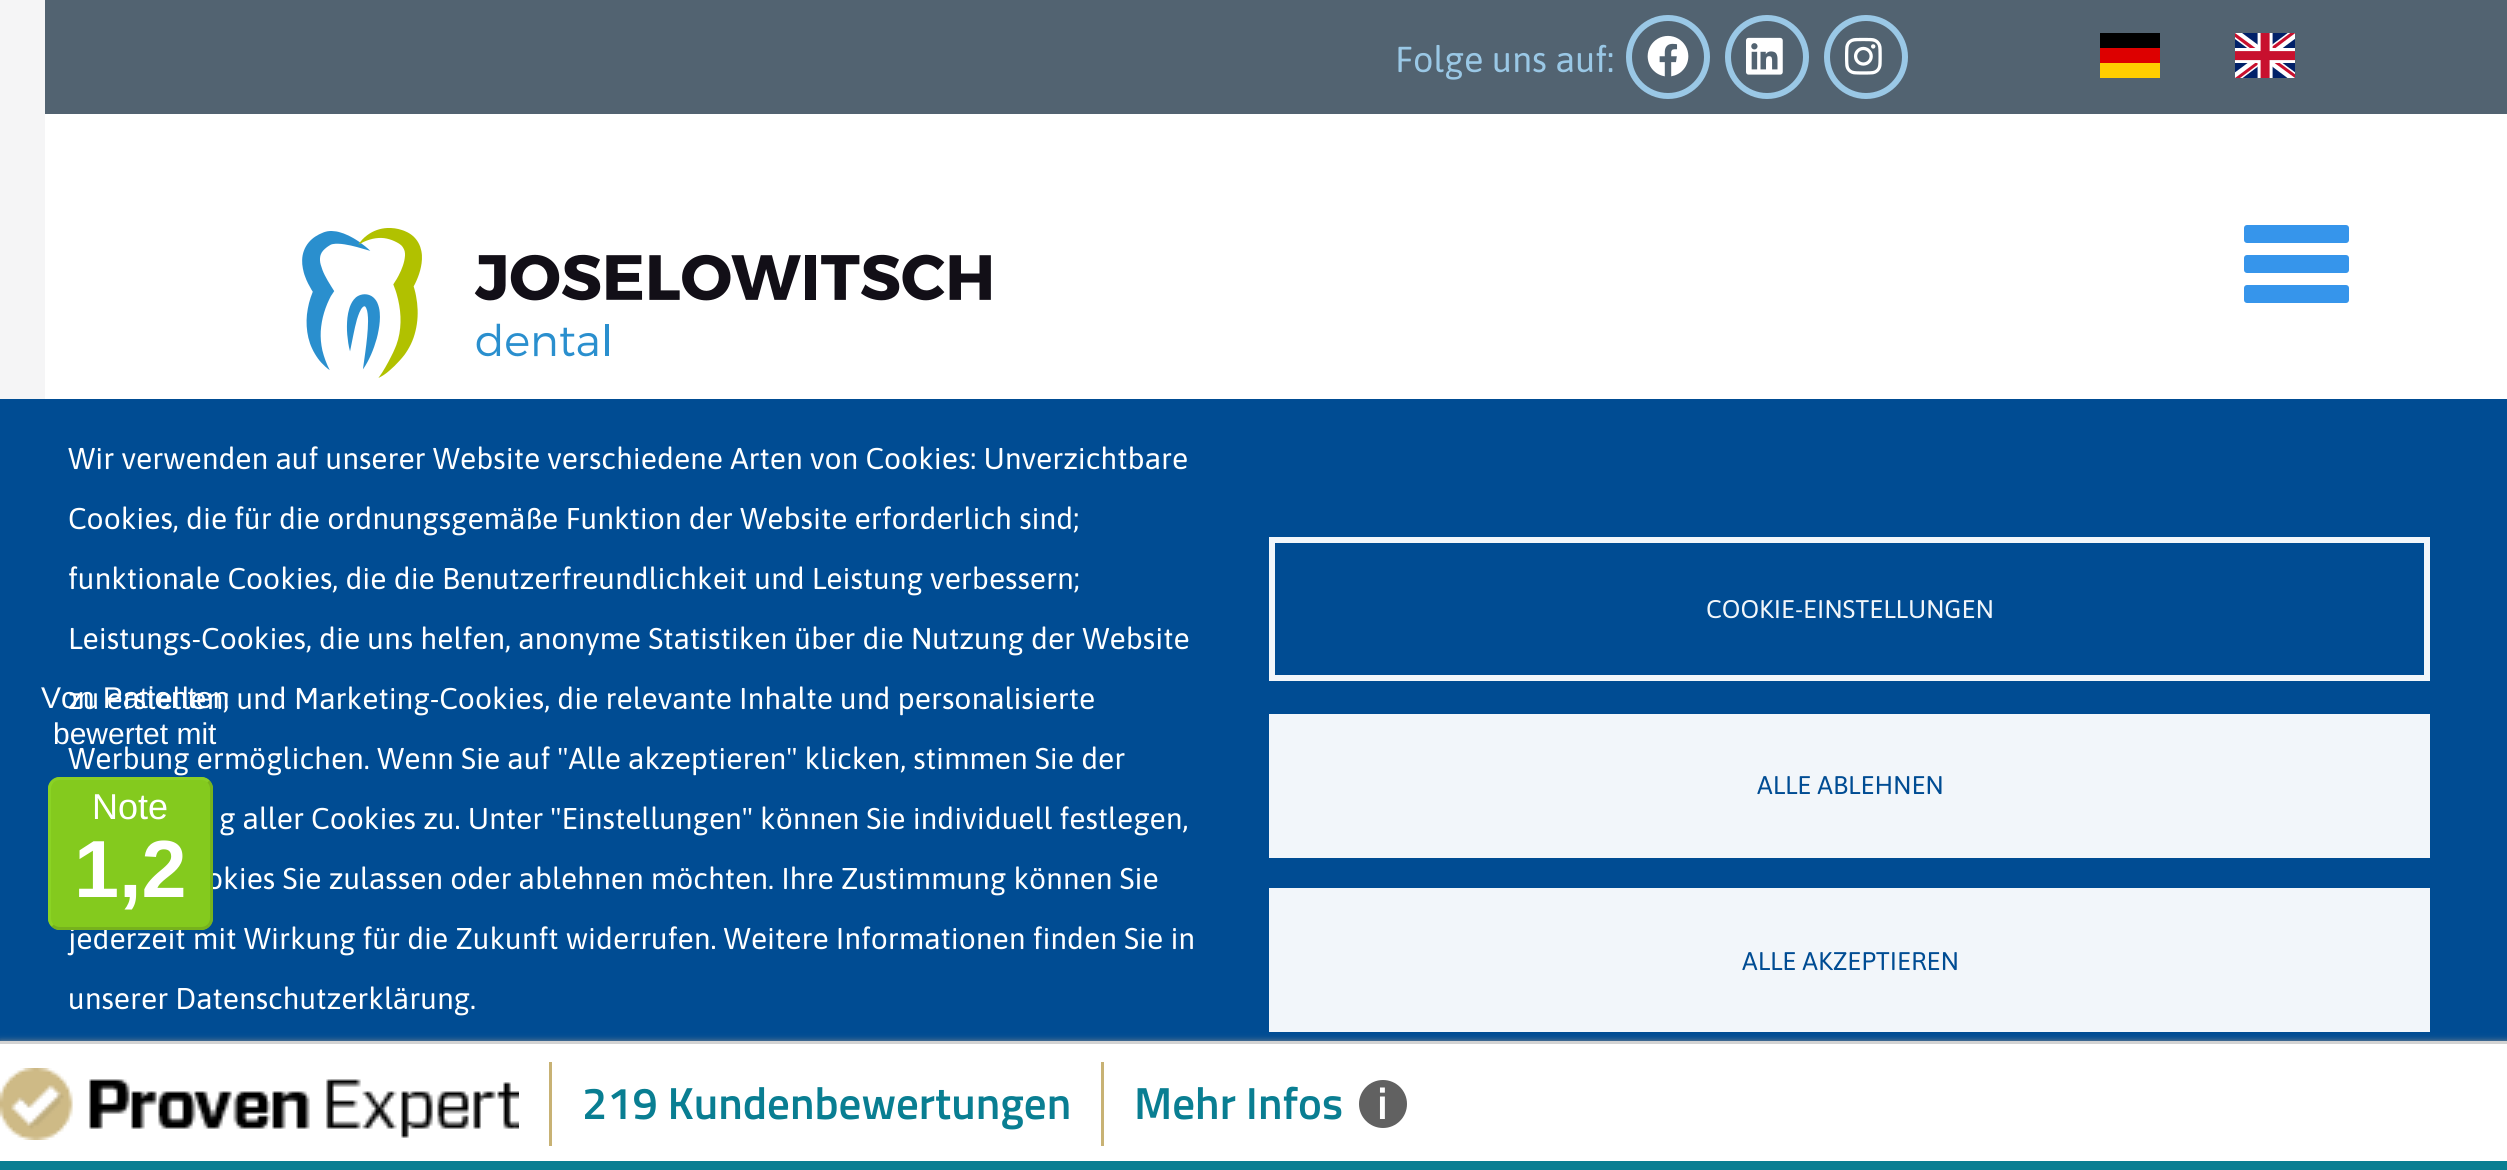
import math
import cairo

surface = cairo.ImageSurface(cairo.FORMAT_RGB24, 2507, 1170)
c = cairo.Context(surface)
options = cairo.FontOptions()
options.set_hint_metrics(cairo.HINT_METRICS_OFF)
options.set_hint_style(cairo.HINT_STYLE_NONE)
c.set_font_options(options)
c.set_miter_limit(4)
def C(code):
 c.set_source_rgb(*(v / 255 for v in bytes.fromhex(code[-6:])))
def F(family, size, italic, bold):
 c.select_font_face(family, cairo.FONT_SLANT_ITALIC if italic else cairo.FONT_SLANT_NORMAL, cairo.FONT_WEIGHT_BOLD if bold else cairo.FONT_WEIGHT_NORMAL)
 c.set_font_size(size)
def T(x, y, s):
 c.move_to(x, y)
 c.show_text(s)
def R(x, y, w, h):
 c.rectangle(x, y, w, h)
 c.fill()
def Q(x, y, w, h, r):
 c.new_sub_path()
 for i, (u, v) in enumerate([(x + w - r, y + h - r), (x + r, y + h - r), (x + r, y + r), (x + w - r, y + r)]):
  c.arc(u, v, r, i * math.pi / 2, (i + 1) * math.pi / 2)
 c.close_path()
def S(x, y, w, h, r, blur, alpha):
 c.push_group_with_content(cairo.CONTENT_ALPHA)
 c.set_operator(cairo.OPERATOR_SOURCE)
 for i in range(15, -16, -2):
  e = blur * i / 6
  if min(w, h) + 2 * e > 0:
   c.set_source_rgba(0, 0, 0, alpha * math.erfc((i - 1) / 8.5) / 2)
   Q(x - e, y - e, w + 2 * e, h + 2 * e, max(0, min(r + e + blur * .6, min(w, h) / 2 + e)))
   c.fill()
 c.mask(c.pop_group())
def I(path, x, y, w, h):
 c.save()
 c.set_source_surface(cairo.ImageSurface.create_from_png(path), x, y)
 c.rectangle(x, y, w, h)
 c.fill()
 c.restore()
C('ffffff')
c.paint()
C('f5f5f6')
R(0,0,45,399)
I('1.png',302,228,689,150)
C('3695eb')
Q(2244,225,105,18,3)
c.fill()
Q(2244,255,105,18,3)
c.fill()
Q(2244,285,105,18,3)
c.fill()
C('526371')
R(45,0,2462,114)
F('Asap',36,0,0)
C('9ac8e6')
T(1395,72,'Folge uns auf:')
c.new_path()
c.arc(1668,57,39,0,2 * math.pi)
c.set_line_width(6)
c.stroke()
I('2.png',1647,35,42,42)
c.arc(1767,57,39,0,2 * math.pi)
c.stroke()
I('3.png',1746,37,37,38)
c.arc(1866,57,39,0,2 * math.pi)
c.stroke()
I('4.png',1845,37,37,38)
C('000000')
R(2100,33,60,15)
C('dd0000')
R(2100,48,60,15)
C('ffce00')
R(2100,63,60,15)
I('5.png',2235,33,60,45)
C('004c93')
R(0,399,2507,642)
F('Asap',30,0,0)
C('ffffff')
T(68,469,'Wir verwenden auf unserer Website verschiedene Arten von Cookies: Unverzichtbare')
T(68,529,'Cookies, die für die ordnungsgemäße Funktion der Website erforderlich sind;')
T(68,589,'funktionale Cookies, die die Benutzerfreundlichkeit und Leistung verbessern;')
T(68,649,'Leistungs-Cookies, die uns helfen, anonyme Statistiken über die Nutzung der Website')
T(68,709,'zu erstellen; und Marketing-Cookies, die relevante Inhalte und personalisierte')
T(68,769,'Werbung ermöglichen. Wenn Sie auf "Alle akzeptieren" klicken, stimmen Sie der')
T(219,829,'g aller Cookies zu. Unter "Einstellungen" können Sie individuell festlegen,')
T(206,889,'okies Sie zulassen oder ablehnen möchten. Ihre Zustimmung können Sie')
T(68,949,'jederzeit mit Wirkung für die Zukunft widerrufen. Weitere Informationen finden Sie in')
T(68,1009,'unserer Datenschutzerklärung.')
c.rectangle(1272,540,1155,138)
C('f2f6fa')
c.stroke()
F('Asap',25.5,0,0)
T(1706,618,'COOKIE-EINSTELLUNGEN')
R(1269,714,1161,144)
C('004c93')
T(1757,794,'ALLE ABLEHNEN')
C('f2f6fa')
R(1269,888,1161,144)
C('004c93')
T(1742,970,'ALLE AKZEPTIEREN')
F('Liberation Sans',30,0,0)
C('ffffff')
T(41,708,'Von Patienten')
T(53,744,'bewertet mit')
C('84ca1e')
Q(48,777,165,153,12)
c.fill()
c.new_path()
c.move_to(52.5,781.5)
c.curve_to(54.5,779.5,57,778.5,60,778.5)
c.line_to(201,778.5)
c.curve_to(204,778.5,206.5,779.5,208.5,781.5)
C('8acf27')
c.set_line_width(3)
c.stroke()
c.new_path()
c.move_to(208.5,781.5)
c.curve_to(210.5,783.5,211.5,786,211.5,789)
c.line_to(211.5,918)
c.curve_to(211.5,921,210.5,923.5,208.5,925.5)
C('77b41e')
c.stroke()
c.new_path()
c.move_to(208.5,925.5)
c.curve_to(206.5,927.5,204,928.5,201,928.5)
c.line_to(60,928.5)
c.curve_to(57,928.5,54.5,927.5,52.5,925.5)
C('76b21d')
c.stroke()
c.new_path()
c.move_to(52.5,925.5)
c.curve_to(50.5,923.5,49.5,921,49.5,918)
c.line_to(49.5,789)
c.curve_to(49.5,786,50.5,783.5,52.5,781.5)
C('8bd324')
c.stroke()
F('Liberation Sans',36,0,0)
C('ffffff')
T(92,819,'Note')
F('Liberation Sans',81,0,1)
T(74,897,'1,2')
C('888888')
S(0,1041,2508,129,0,3,1)
C('ffffff')
R(0,1044,2507,117)
C('d3d3d3')
R(0,1041,2507,3)
I('6.png',0,1068,519,72)
C('c8b274')
R(549,1062,3,84)
F('Titillium Web SemiBold',45,0,0)
C('097e92')
T(582,1119,'219 Kundenbewertungen')
C('c8b274')
R(1101,1062,3,84)
C('097e92')
T(1134,1119,'Mehr Infos')
C('616161')
c.new_path()
c.arc(1383,1104,24,0,2 * math.pi)
c.fill()
C('ffffff')
T(1377,1119,'i')
C('097e92')
R(0,1161,2507,9)
surface.write_to_png('o.png')
